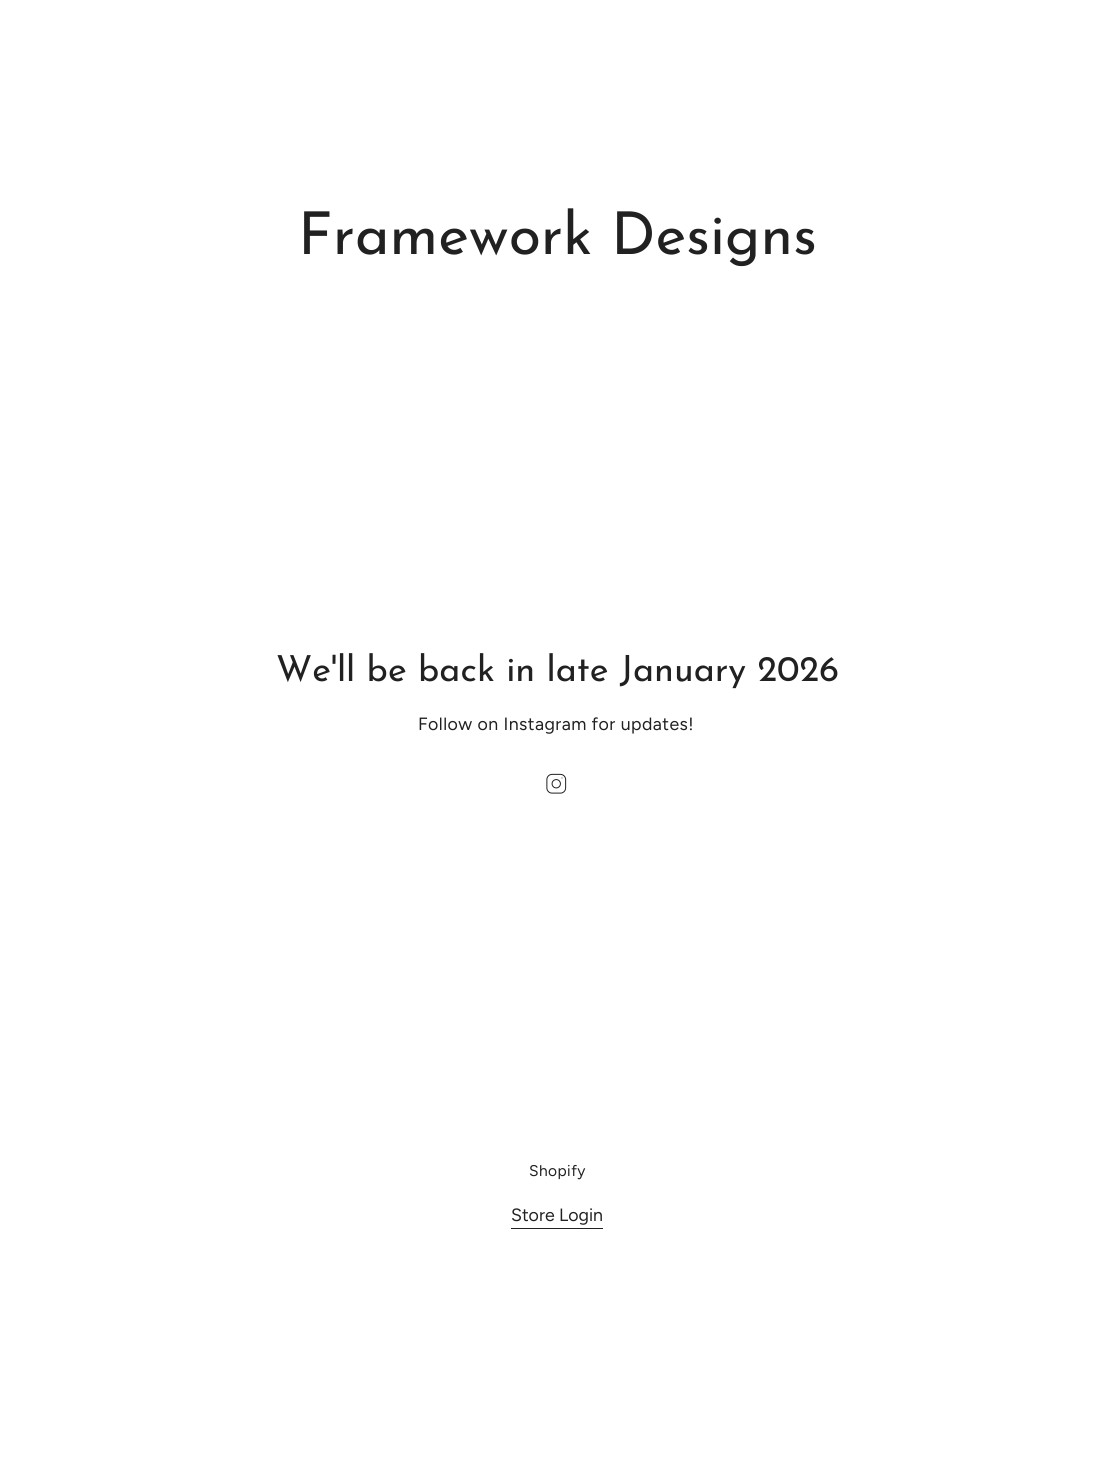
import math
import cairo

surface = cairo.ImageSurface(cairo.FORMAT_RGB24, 1113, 1459)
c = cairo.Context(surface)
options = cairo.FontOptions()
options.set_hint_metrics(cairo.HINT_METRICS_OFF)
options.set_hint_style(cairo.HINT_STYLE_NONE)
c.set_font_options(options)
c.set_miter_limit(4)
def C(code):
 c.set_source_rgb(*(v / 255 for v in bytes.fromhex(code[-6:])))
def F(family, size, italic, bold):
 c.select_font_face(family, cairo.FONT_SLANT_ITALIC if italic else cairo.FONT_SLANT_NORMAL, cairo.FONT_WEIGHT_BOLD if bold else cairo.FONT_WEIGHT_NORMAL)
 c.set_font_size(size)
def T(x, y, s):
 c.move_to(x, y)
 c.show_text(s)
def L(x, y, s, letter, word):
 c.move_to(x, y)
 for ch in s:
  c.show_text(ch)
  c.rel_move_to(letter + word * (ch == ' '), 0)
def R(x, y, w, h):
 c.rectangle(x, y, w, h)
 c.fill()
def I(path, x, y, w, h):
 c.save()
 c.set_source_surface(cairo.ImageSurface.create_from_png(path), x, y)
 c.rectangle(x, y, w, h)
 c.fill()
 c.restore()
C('ffffff')
c.paint()
F('Josefin Sans',59,0,0)
C('212121')
T(298,254,'Framework Designs')
F('Josefin Sans',36,0,0)
T(276,681,'We\'ll be back in late January 2026')
F('Figtree',17.75,0,0)
L(418,730,'Follow on Instagram for updates!',.45,0)
I('1.png',546,773,21,21)
F('Figtree',15.5,0,0)
L(529,1176,'Shopify',.45,0)
R(511,1228,92,1)
F('Figtree',17.75,0,0)
T(511,1221,'Store Login')
surface.write_to_png('o.png')
